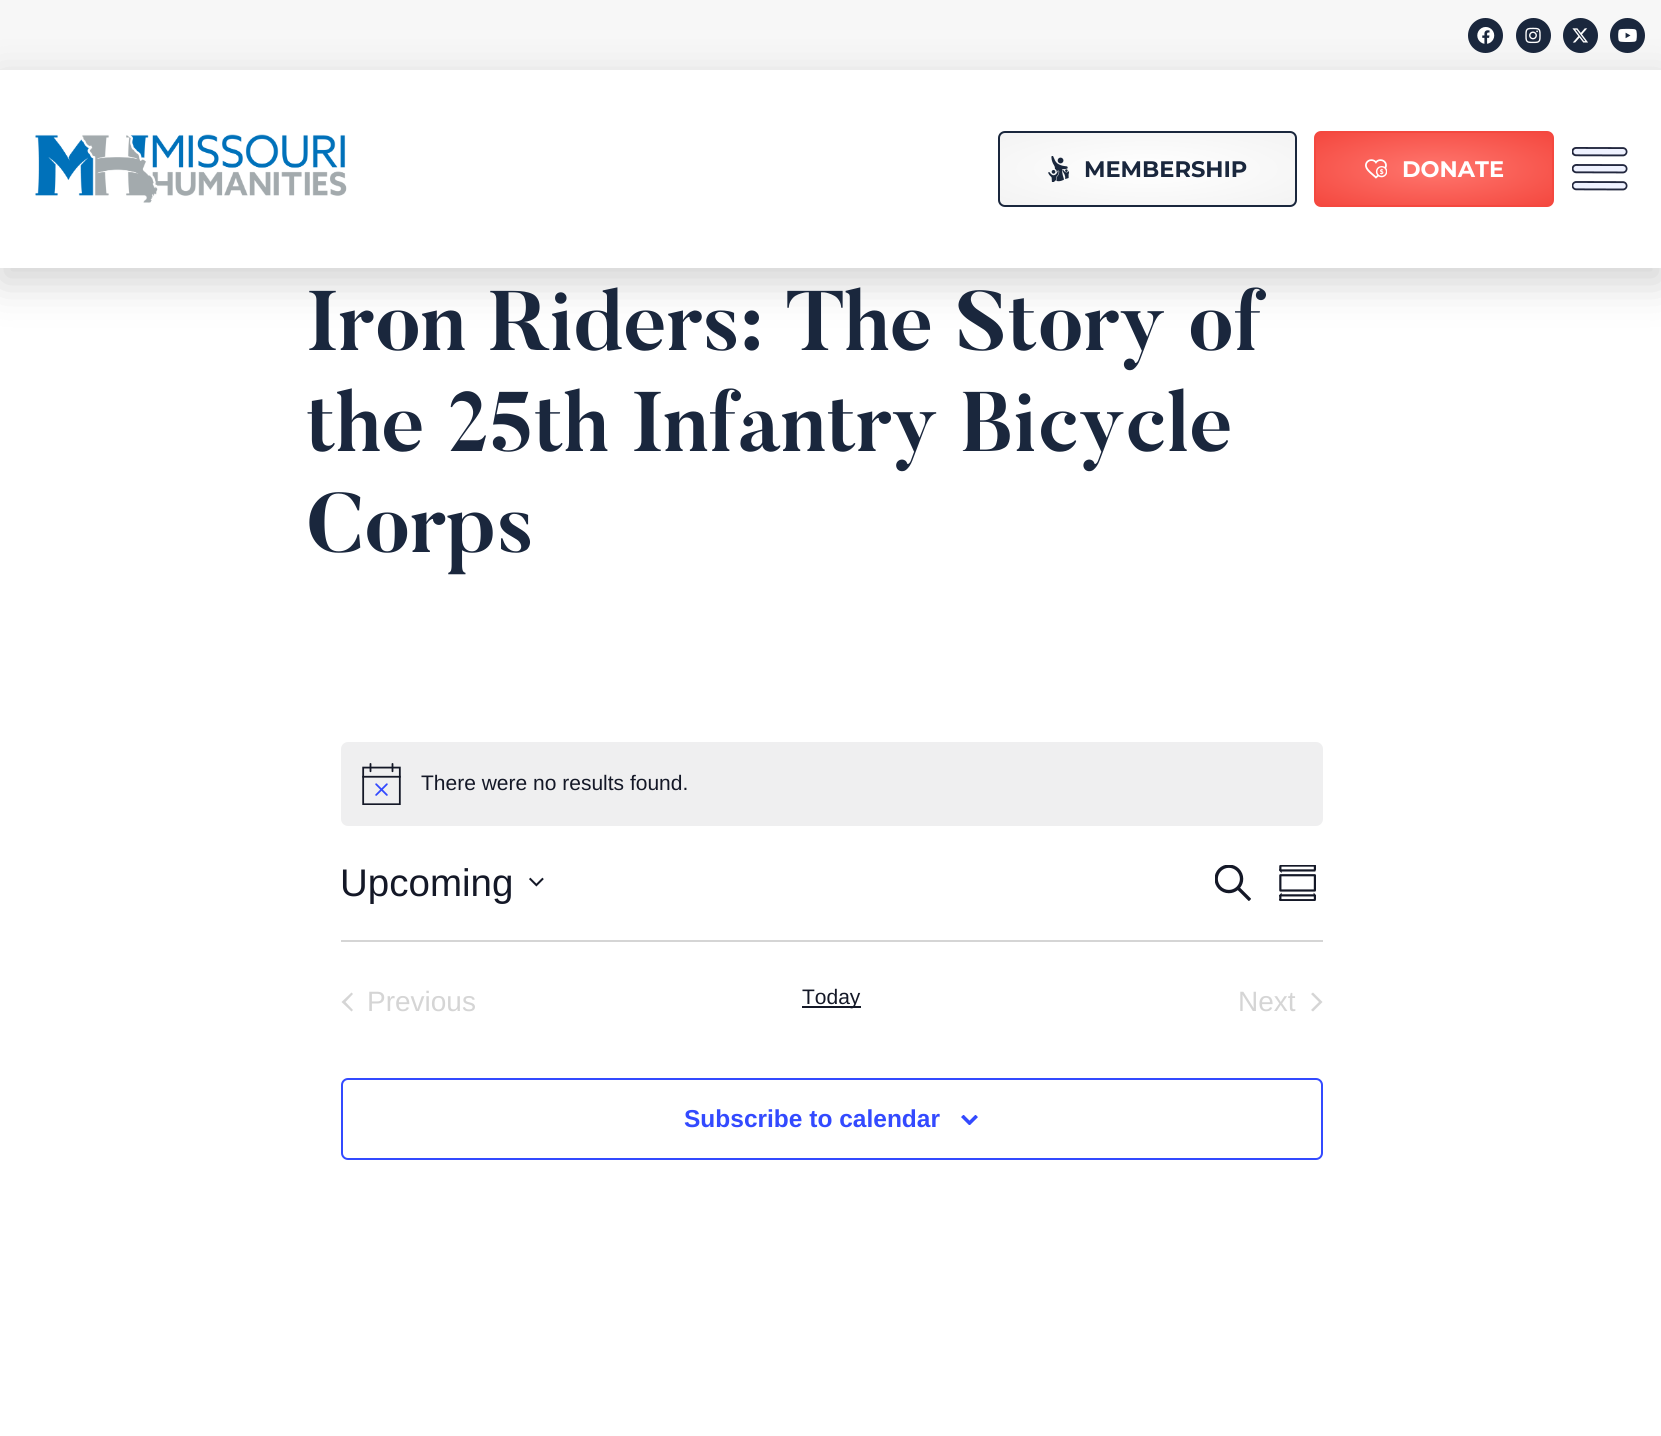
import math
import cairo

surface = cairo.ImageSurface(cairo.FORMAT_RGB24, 1661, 1436)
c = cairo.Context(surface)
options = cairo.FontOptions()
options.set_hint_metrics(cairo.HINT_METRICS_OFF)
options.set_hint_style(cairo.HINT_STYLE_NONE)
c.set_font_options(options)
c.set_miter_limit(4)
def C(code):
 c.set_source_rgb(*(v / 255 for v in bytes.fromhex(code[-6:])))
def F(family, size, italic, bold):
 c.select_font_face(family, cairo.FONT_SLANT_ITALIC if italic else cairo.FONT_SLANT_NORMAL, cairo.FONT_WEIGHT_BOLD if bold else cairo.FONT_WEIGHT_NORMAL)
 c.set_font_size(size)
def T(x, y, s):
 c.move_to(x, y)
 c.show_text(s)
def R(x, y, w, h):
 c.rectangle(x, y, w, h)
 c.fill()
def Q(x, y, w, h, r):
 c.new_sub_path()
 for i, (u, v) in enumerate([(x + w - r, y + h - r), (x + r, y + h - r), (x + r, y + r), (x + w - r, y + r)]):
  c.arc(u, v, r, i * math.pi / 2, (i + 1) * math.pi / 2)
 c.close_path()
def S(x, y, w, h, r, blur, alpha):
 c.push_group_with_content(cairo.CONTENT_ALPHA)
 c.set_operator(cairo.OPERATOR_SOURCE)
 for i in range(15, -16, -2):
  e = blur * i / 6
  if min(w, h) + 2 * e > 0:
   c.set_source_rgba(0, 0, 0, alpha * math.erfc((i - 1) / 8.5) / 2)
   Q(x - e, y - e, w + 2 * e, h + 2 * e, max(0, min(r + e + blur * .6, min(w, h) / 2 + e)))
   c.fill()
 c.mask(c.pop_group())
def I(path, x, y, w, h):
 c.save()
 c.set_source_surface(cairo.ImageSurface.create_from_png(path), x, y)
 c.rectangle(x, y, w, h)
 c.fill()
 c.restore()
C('ffffff')
c.paint()
C('f7f7f7')
R(0,0,1661,70)
C('1a273d')
c.arc(1485.5,35.5,17.5,0,2 * math.pi)
c.fill()
I('1.png',1477,27,18,17)
c.arc(1533.5,35.5,17.5,0,2 * math.pi)
c.fill()
I('2.png',1525,27,16,17)
c.arc(1580.5,35.5,17.5,0,2 * math.pi)
c.fill()
I('3.png',1572,28,16,15)
c.arc(1627.5,35.5,17.5,0,2 * math.pi)
c.fill()
I('4.png',1618,28,19,14)
C('000000')
S(0,84,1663,198,0,21,.18)
C('ffffff')
R(0,70,1661,198)
I('5.png',35,134,312,69)
gradient = cairo.RadialGradient(0,0,0,0,0,1)
gradient.set_matrix(cairo.Matrix(1 / 209, 0, 0, 1 / 51, -1 * 1147 / 209, -1 * 169 / 51))
gradient.add_color_stop_rgba(0,1,1,1,1)
gradient.add_color_stop_rgba(1,0.953,0.953,0.953,1)
c.set_source(gradient)
R(999,133,296,72)
Q(999,132,297,74,6)
C('1a273d')
c.stroke()
I('6.png',1048,156,21,26)
F('Montserrat',22.5,0,1)
T(1084,177,'MEMBERSHIP')
gradient = cairo.RadialGradient(0,0,0,0,0,1)
gradient.set_matrix(cairo.Matrix(1 / 167, 0, 0, 1 / 51, -1 * 1434 / 167, -1 * 169 / 51))
gradient.add_color_stop_rgba(0,1,0.463,0.431,1)
gradient.add_color_stop_rgba(1,0.957,0.282,0.247,1)
c.set_source(gradient)
R(1316,133,236,72)
Q(1315,132,238,74,6)
C('f4483f')
c.stroke()
I('7.png',1365,159,22,20)
C('ffffff')
T(1402,177,'DONATE')
I('8.png',1572,147,56,44)
F('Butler',84,0,1)
C('1a273d')
T(306,350,'Iron Riders: The Story of')
T(306,451,'the 25th Infantry Bicycle')
T(306,552,'Corps')
C('efeff0')
Q(341,742,982,84,7)
c.fill()
I('9.png',362,763,39,42)
F('Liberation Sans',21,0,0)
C('141827')
T(421,790,'There were no results found.')
F('Liberation Sans',38.5,0,0)
T(340,896,'Upcoming')
I('10.png',529,877,15,10)
I('11.png',1215,865,36,36)
I('12.png',1279,865,37,36)
C('d5d5d5')
R(341,940,982,2)
c.new_path()
c.move_to(353,1010)
c.line_to(351.5,1011.5)
c.line_to(341.5,1002)
c.line_to(351.5,992.5)
c.line_to(353,994)
c.line_to(345.5,1002)
c.close_path()
c.fill()
F('Liberation Sans',28,0,0)
T(367,1011,'Previous')
C('141827')
R(802,1006,59,2)
F('Liberation Sans',21,0,0)
T(802,1004,'Today')
F('Liberation Sans',28,0,0)
C('d5d5d5')
T(1238,1011,'Next')
c.new_path()
c.move_to(1311,994)
c.line_to(1313,992.5)
c.line_to(1322.5,1002)
c.line_to(1313,1011.5)
c.line_to(1311,1010)
c.line_to(1319,1002)
c.close_path()
c.fill()
Q(342,1079,980,80,6)
C('334aff')
c.stroke()
F('Liberation Sans',24.5,0,1)
T(684,1127,'Subscribe to calendar')
I('13.png',961,1115,17,10)
surface.write_to_png('o.png')
